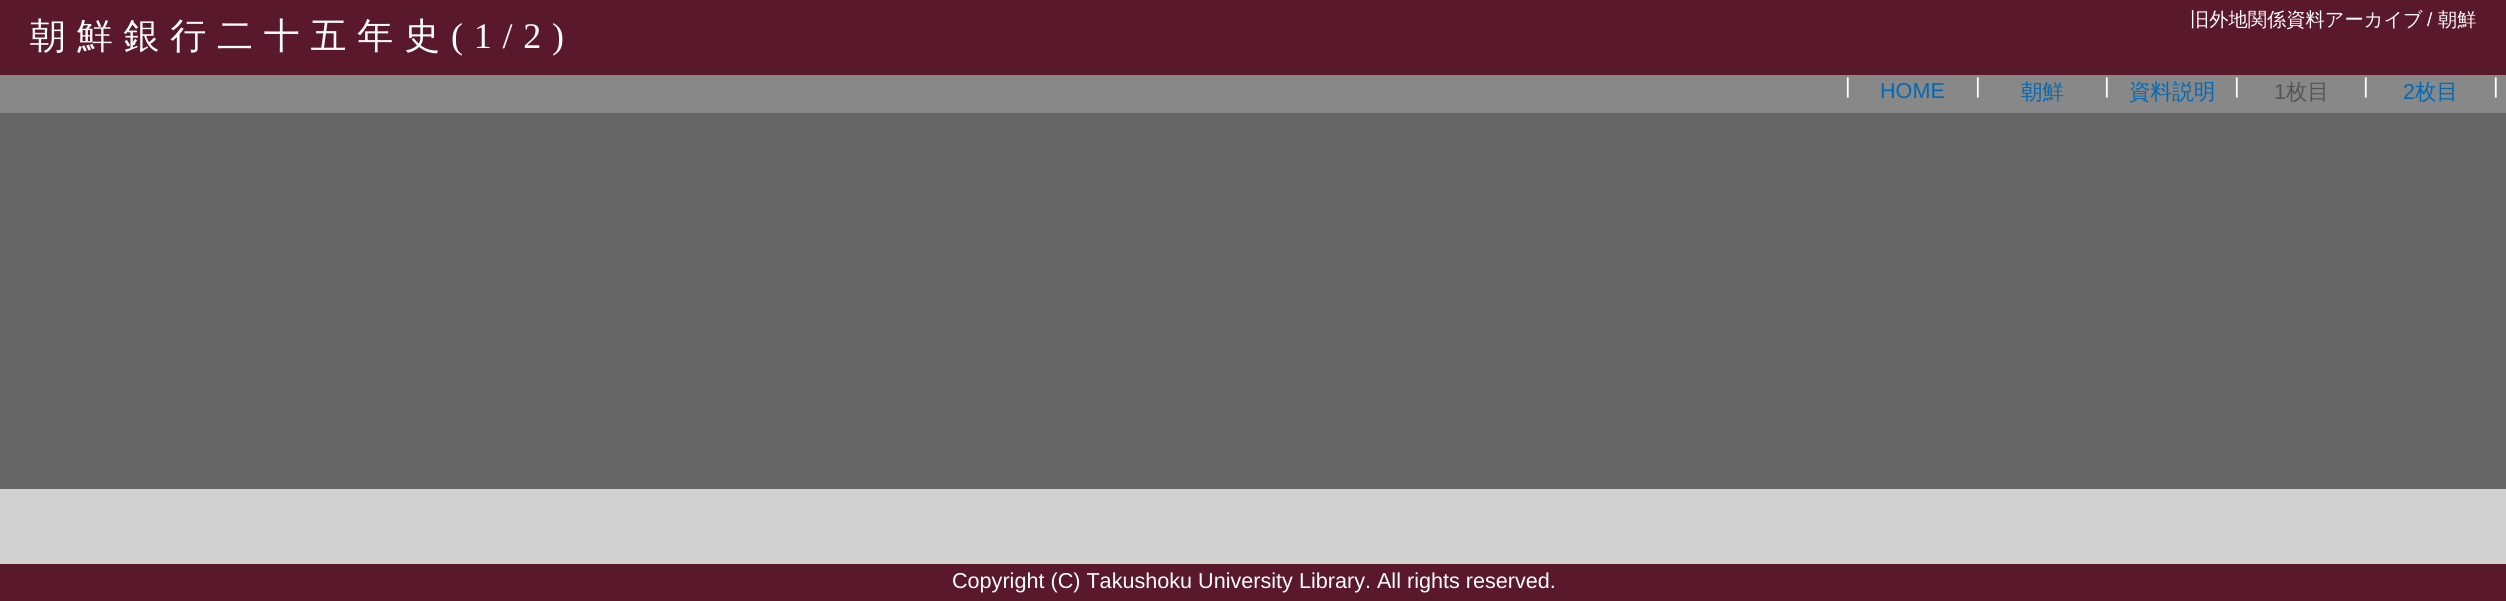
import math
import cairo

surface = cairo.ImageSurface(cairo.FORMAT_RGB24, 2506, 601)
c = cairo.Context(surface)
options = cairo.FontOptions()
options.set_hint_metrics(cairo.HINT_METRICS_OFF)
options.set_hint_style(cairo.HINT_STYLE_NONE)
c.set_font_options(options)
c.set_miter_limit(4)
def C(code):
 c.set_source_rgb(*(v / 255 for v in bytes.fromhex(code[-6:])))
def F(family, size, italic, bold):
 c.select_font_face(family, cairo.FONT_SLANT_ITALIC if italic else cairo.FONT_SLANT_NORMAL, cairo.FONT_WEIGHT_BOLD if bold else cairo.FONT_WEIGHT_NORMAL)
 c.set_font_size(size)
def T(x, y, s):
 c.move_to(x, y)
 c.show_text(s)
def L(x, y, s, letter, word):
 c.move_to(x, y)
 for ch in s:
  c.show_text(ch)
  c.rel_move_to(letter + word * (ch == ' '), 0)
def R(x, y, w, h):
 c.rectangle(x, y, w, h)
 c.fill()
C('888888')
c.paint()
C('59182b')
R(0,0,2506,75)
F('WenQuanYi Zen Hei Medium',36,0,0)
C('ffffff')
L(30,48,'朝鮮銀行二十五年史',10.75,0)
F('Liberation Serif',36,0,0)
L(451,48,'(1/2)',10.75,0)
F('WenQuanYi Zen Hei Medium',19.25,0,0)
T(2190,26,'旧外地関係資料アーカイブ')
F('Liberation Sans',19.25,0,0)
T(2427,26,'/')
F('WenQuanYi Zen Hei Medium',19.25,0,0)
T(2438,26,'朝鮮')
F('Liberation Sans',21.6,0,0)
T(1845,93,'|')
C('006ab6')
T(1880,98,'HOME')
C('ffffff')
T(1975,93,'|')
F('WenQuanYi Zen Hei Medium',21.6,0,0)
C('006ab6')
T(2021,99,'朝鮮')
F('Liberation Sans',21.6,0,0)
C('ffffff')
T(2104,93,'|')
F('WenQuanYi Zen Hei Medium',21.6,0,0)
C('006ab6')
T(2129,99,'資料説明')
F('Liberation Sans',21.6,0,0)
C('ffffff')
T(2234,93,'|')
C('555555')
T(2274,99,'1')
F('WenQuanYi Zen Hei Medium',21.6,0,0)
T(2286,99,'枚目')
F('Liberation Sans',21.6,0,0)
C('ffffff')
T(2363,93,'|')
C('006ab6')
T(2403,99,'2')
F('WenQuanYi Zen Hei Medium',21.6,0,0)
T(2415,99,'枚目')
F('Liberation Sans',21.6,0,0)
C('ffffff')
T(2493,93,'|')
C('666666')
R(0,113,2506,376)
C('d1d1d1')
R(0,489,2506,75)
C('59182b')
R(0,564,2506,37)
C('ffffff')
T(952,588,'Copyright (C) Takushoku University Library. All rights reserved.')
surface.write_to_png('o.png')
